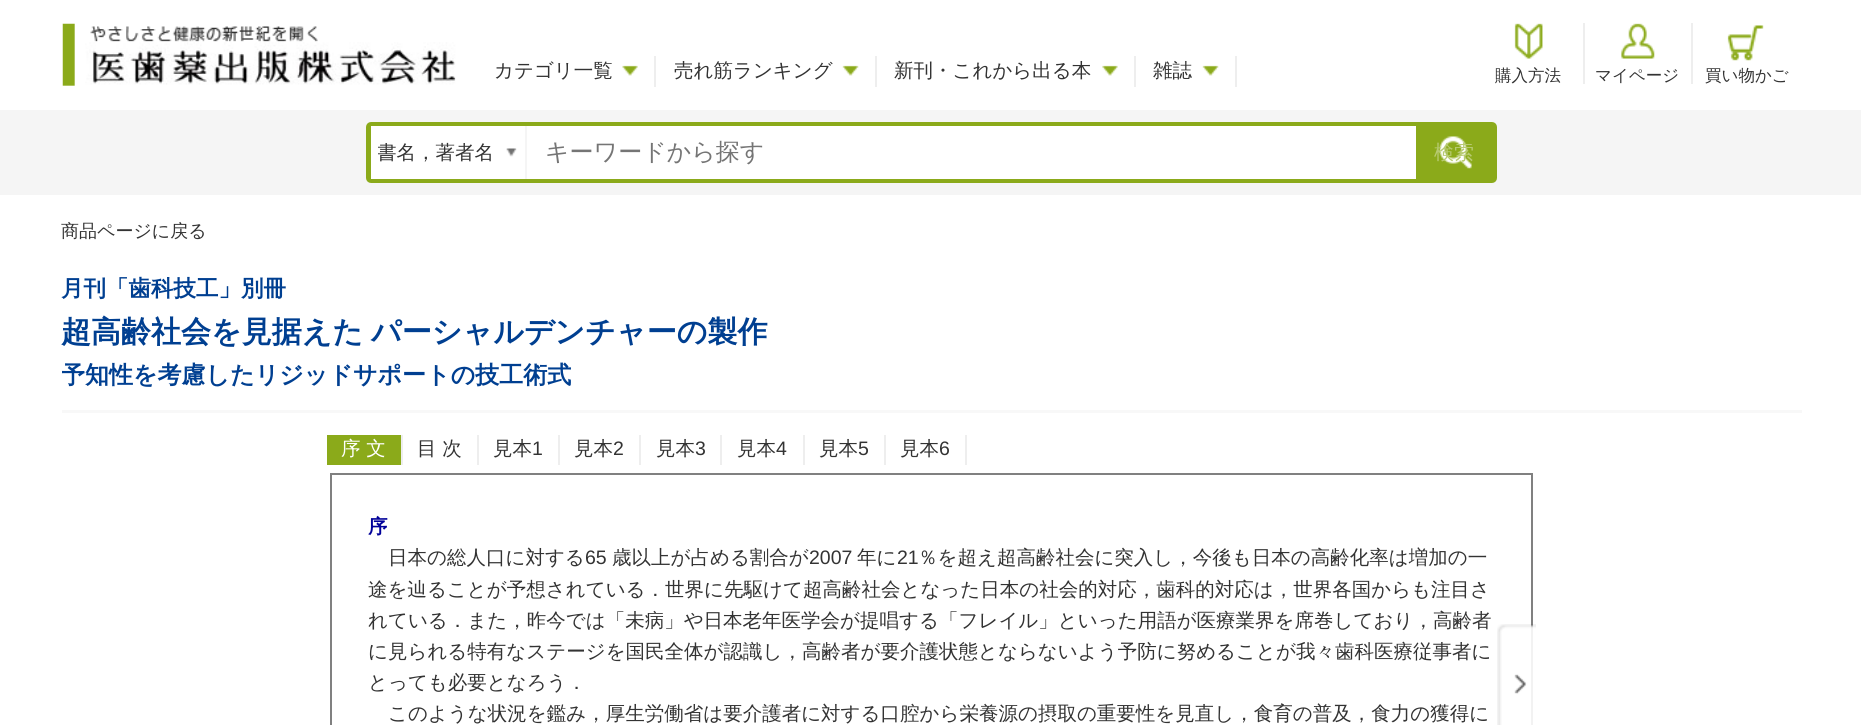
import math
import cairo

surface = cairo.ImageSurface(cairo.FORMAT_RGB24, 1861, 725)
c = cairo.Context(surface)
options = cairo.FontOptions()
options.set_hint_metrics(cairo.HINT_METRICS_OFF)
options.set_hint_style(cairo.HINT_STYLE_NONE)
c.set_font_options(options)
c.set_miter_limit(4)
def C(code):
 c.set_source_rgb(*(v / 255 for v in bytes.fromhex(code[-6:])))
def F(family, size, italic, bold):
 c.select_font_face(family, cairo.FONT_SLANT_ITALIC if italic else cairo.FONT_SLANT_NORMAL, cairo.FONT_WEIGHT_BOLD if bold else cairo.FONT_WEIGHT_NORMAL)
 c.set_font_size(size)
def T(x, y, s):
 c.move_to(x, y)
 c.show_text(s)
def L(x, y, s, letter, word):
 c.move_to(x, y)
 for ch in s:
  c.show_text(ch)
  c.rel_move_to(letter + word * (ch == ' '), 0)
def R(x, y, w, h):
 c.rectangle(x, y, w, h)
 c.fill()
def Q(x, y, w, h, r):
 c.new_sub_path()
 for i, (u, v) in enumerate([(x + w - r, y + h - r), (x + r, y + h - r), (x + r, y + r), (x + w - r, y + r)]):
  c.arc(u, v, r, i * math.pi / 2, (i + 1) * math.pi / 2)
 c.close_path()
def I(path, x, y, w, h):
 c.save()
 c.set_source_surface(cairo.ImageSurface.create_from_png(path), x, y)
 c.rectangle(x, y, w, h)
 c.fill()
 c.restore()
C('ffffff')
c.paint()
I('1.png',62,23,394,63)
I('2.png',622,65,16,11)
C('eeeeee')
R(654,56,2,31)
F('WenQuanYi Zen Hei Medium',19.5,0,0)
C('333333')
T(494,77,'カテゴリ一覧')
I('3.png',842,65,17,11)
C('eeeeee')
R(875,56,2,31)
C('333333')
T(674,77,'売れ筋ランキング')
I('4.png',1102,65,16,11)
C('eeeeee')
R(1134,56,2,31)
C('333333')
T(894,77,'新刊・これから出る本')
I('5.png',1202,65,17,11)
C('eeeeee')
R(1235,56,2,31)
C('333333')
T(1153,77,'雑誌')
I('6.png',1514,23,29,36)
C('eeeeee')
R(1583,23,2,61)
F('WenQuanYi Zen Hei Medium',16.5,0,0)
C('333333')
T(1495,81,'購入方法')
I('7.png',1621,23,34,36)
C('eeeeee')
R(1691,23,2,61)
C('333333')
T(1595,81,'マイページ')
I('8.png',1727,25,37,36)
T(1705,81,'買い物かご')
C('f5f5f5')
R(0,110,1861,85)
Q(368.5,124.5,1126,56,2.5)
C('8baa1a')
c.set_line_width(5)
c.stroke()
C('ffffff')
R(371,126,154,53)
I('9.png',506,148,11,9)
C('f5f5f5')
R(525,126,2,53)
c.save()
c.rectangle(378,141,117,23)
c.clip()
F('WenQuanYi Zen Hei Medium',19.5,0,0)
C('333333')
T(377,159,'書名，著者名')
c.restore()
C('ffffff')
R(527,126,889,53)
F('WenQuanYi Zen Hei Medium',24,0,0)
C('757575')
T(545,160,'キーワードから探す')
C('8baa1a')
R(1416,127,76,51)
I('10.png',1439,136,33,33)
F('WenQuanYi Zen Hei Medium',20,0,0)
C('b7ca71')
T(1434,159,'検索')
C('f8f8f8')
R(62,410,1740,3)
F('WenQuanYi Zen Hei Medium',18,0,0)
C('333333')
T(61,237,'商品ページに戻る')
F('WenQuanYi Zen Hei',22.5,0,1)
C('003f91')
T(61,296,'月刊「歯科技工」別冊')
F('WenQuanYi Zen Hei',30,0,1)
L(61,342,'超高齢社会を見据えた パーシャルデンチャーの製作',0,-1)
c.save()
c.rectangle(62,218,1740,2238)
c.clip()
F('WenQuanYi Zen Hei',24,0,1)
T(61,383,'予知性を考慮したリジッドサポートの技工術式')
c.restore()
C('8baa1a')
R(327,435,74,30)
C('eeeeee')
R(401,435,2,30)
F('WenQuanYi Zen Hei Medium',19.5,0,0)
C('ffffff')
T(341,455,'序 文')
C('eeeeee')
R(477,435,2,30)
C('333333')
T(417,455,'目 次')
C('eeeeee')
R(558,435,2,30)
C('333333')
T(493,455,'見本')
F('Liberation Sans',19.5,0,0)
T(532,455,'1')
C('eeeeee')
R(639,435,2,30)
F('WenQuanYi Zen Hei Medium',19.5,0,0)
C('333333')
T(574,455,'見本')
F('Liberation Sans',19.5,0,0)
T(613,455,'2')
C('eeeeee')
R(720,435,2,30)
F('WenQuanYi Zen Hei Medium',19.5,0,0)
C('333333')
T(656,455,'見本')
F('Liberation Sans',19.5,0,0)
T(695,455,'3')
C('eeeeee')
R(803,435,2,30)
F('WenQuanYi Zen Hei Medium',19.5,0,0)
C('333333')
T(737,455,'見本')
F('Liberation Sans',19.5,0,0)
T(776,455,'4')
C('eeeeee')
R(884,435,2,30)
F('WenQuanYi Zen Hei Medium',19.5,0,0)
C('333333')
T(819,455,'見本')
F('Liberation Sans',19.5,0,0)
T(858,455,'5')
C('eeeeee')
R(965,435,2,30)
F('WenQuanYi Zen Hei Medium',19.5,0,0)
C('333333')
T(900,455,'見本')
F('Liberation Sans',19.5,0,0)
T(939,455,'6')
c.rectangle(331,474,1201,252)
C('808080')
c.set_line_width(2)
c.stroke()
F('WenQuanYi Zen Hei',19.5,0,1)
C('000099')
T(368,533,'序')
F('WenQuanYi Zen Hei Medium',19.5,0,0)
C('333333')
T(388,564,'日本の総人口に対する')
F('Liberation Sans',19.5,0,0)
T(585,564,'65')
F('WenQuanYi Zen Hei Medium',19.5,0,0)
T(612,564,'歳以上が占める割合が')
F('Liberation Sans',19.5,0,0)
T(809,564,'2007')
F('WenQuanYi Zen Hei Medium',19.5,0,0)
T(857,564,'年に')
F('Liberation Sans',19.5,0,0)
T(897,564,'21')
F('WenQuanYi Zen Hei Medium',19.5,0,0)
T(918,564,'％を超え超高齢社会に突入し，今後も日本の高齢化率は増加の一')
T(368,596,'途を辿ることが予想されている．世界に先駆けて超高齢社会となった日本の社会的対応，歯科的対応は，世界各国からも注目さ')
T(368,627,'れている．また，昨今では「未病」や日本老年医学会が提唱する「フレイル」といった用語が医療業界を席巻しており，高齢者')
T(368,658,'に見られる特有なステージを国民全体が認識し，高齢者が要介護状態とならないよう予防に努めることが我々歯科医療従事者に')
T(368,689,'とっても必要となろう．')
T(388,720,'このような状況を鑑み，厚生労働省は要介護者に対する口腔から栄養源の摂取の重要性を見直し，食育の普及，食力の獲得に')
I('11.png',1497,624,39,101)
surface.write_to_png('o.png')
